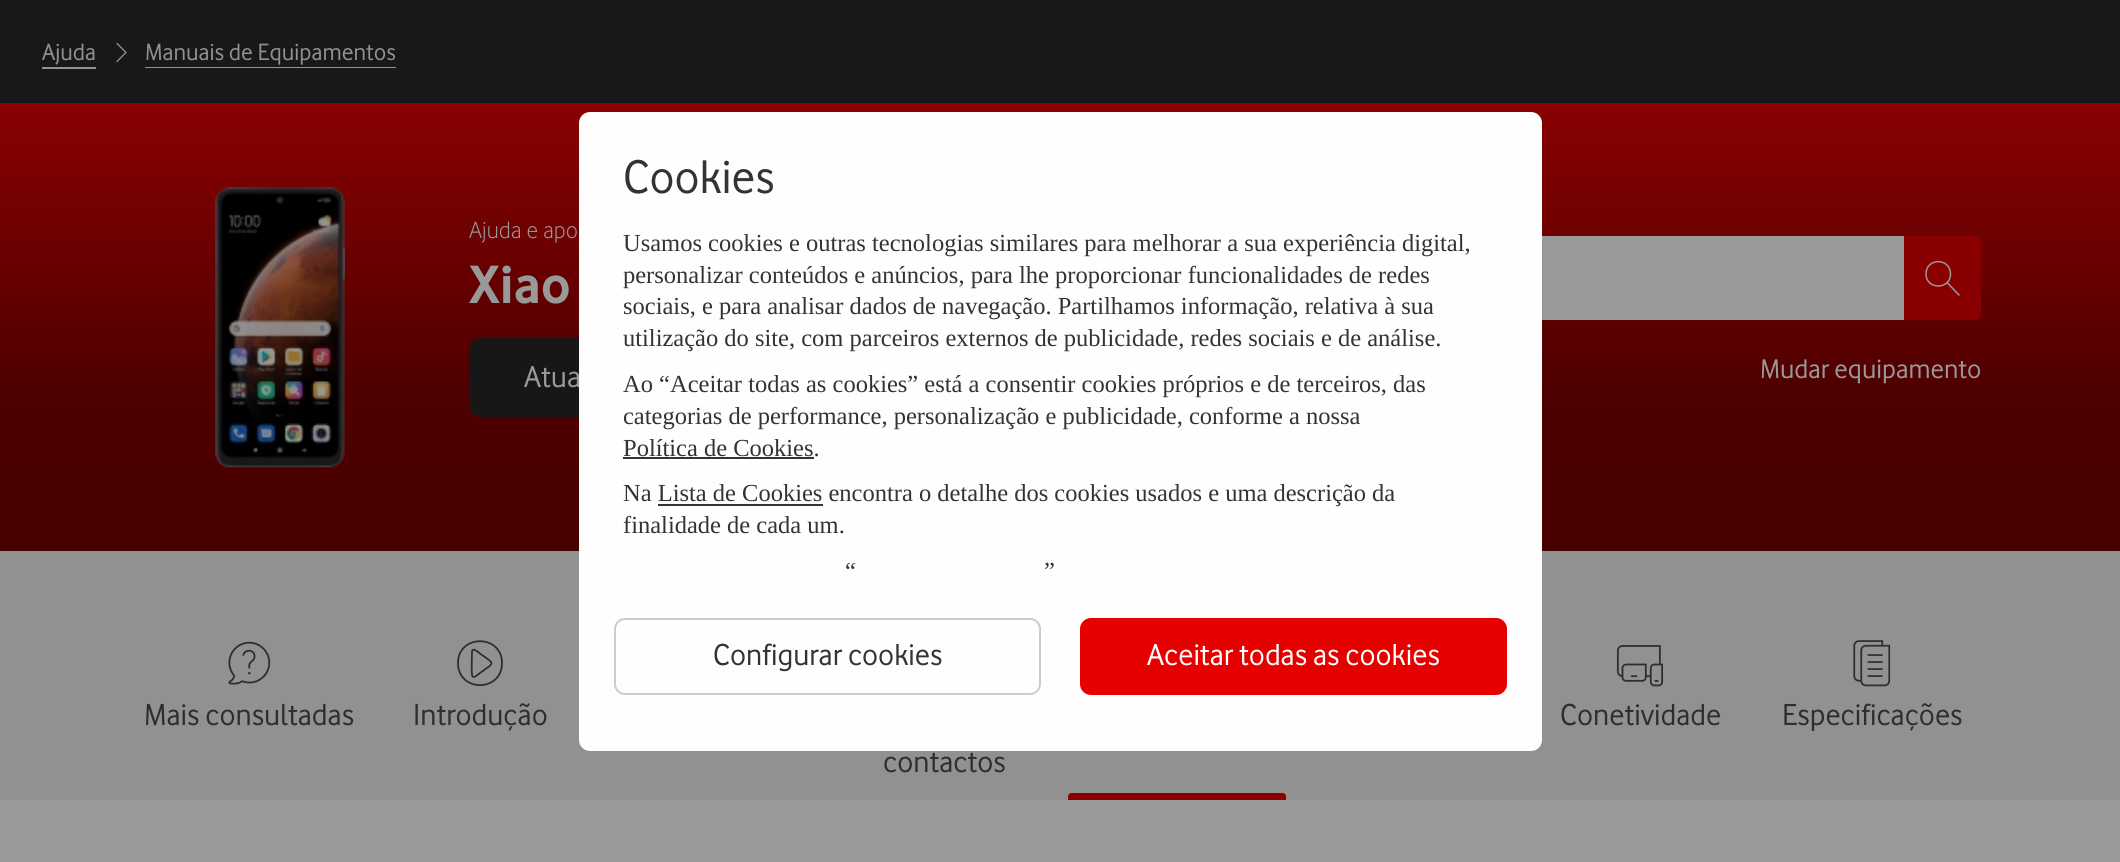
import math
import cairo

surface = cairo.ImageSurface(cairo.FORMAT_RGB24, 2120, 862)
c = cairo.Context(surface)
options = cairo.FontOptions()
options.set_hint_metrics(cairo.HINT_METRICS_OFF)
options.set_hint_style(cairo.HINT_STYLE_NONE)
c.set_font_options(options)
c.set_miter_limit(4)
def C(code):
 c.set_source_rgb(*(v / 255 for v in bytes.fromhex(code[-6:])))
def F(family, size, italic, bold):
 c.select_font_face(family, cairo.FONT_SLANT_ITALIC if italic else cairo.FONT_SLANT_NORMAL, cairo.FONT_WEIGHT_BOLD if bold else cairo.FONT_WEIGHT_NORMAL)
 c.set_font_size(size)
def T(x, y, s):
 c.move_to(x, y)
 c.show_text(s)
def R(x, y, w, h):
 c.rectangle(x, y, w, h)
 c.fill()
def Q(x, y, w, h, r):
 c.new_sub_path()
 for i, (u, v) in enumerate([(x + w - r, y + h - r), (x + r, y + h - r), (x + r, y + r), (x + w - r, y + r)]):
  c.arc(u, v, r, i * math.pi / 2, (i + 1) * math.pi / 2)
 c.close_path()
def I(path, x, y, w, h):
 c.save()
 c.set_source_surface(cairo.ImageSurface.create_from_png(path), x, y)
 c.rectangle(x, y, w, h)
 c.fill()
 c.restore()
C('999999')
c.paint()
C('17181a')
R(0,0,2120,103)
C('919191')
R(42,67,54,2)
F('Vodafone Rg',24.5,0,0)
T(42,60,'Ajuda')
c.new_path()
c.move_to(117,43.5)
c.line_to(126,52.5)
c.line_to(117,61.5)
c.set_line_width(1.3)
c.set_line_cap(cairo.LINE_CAP_ROUND)
c.set_line_join(cairo.LINE_JOIN_ROUND)
c.stroke()
R(145,67,251,1)
T(145,60,'Manuais de Equipamentos')
gradient = cairo.LinearGradient(1061,551,1061,103)
gradient.add_color_stop_rgba(0,0.278,0,0,1)
gradient.add_color_stop_rgba(.36,0.31,0,0,1)
gradient.add_color_stop_rgba(1,0.537,0.004,0.004,1)
c.set_source(gradient)
R(0,103,2120,448)
I('1.png',215,187,130,281)
F('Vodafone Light',24.5,0,0)
C('999999')
T(469,238,'Ajuda e apo')
F('Vodafone',56,0,1)
T(469,303,'Xiao')
C('171717')
Q(471,340,511,75,10)
c.fill_preserve()
c.set_line_width(4)
c.set_line_cap(cairo.LINE_CAP_BUTT)
c.set_line_join(cairo.LINE_JOIN_MITER)
c.stroke()
F('Vodafone Rg',31.5,0,0)
C('999999')
T(524,387,'Atua')
R(1542,236,362,84)
C('8a0001')
c.new_path()
c.move_to(1904,236)
c.line_to(1974,236)
c.curve_to(1978,236,1981,239,1981,243)
c.line_to(1981,313)
c.curve_to(1981,317,1978,320,1974,320)
c.line_to(1904,320)
c.close_path()
c.fill()
c.new_path()
c.move_to(1908,236)
c.line_to(1974,236)
c.curve_to(1978,236,1981,239,1981,243)
c.line_to(1981,313)
c.curve_to(1981,317,1978,320,1974,320)
c.line_to(1908,320)
c.curve_to(1906,320,1904,318,1904,316)
c.line_to(1904,240)
c.curve_to(1904,238,1906,236,1908,236)
c.close_path()
c.fill()
c.new_path()
c.move_to(1947,282.5)
c.line_to(1959,295)
c.move_to(1950.5,274)
c.curve_to(1950.5,290,1926,290,1926,274)
c.curve_to(1926,257.5,1950.5,257.5,1950.5,274)
c.close_path()
C('999999')
c.set_line_width(1.5)
c.set_line_cap(cairo.LINE_CAP_ROUND)
c.set_line_join(cairo.LINE_JOIN_ROUND)
c.stroke()
F('Vodafone Rg',28,0,0)
T(1760,378,'Mudar equipamento')
C('919191')
R(0,551,2120,249)
I('2.png',228,641,43,44)
F('Vodafone Rg',31.5,0,0)
C('2d2e2f')
T(144,725,'Mais consultadas')
c.new_path()
c.move_to(472,651.5)
c.curve_to(472,655,471,675,472.5,676.5)
c.curve_to(474,678,476.5,675.5,478,674.5)
c.line_to(485.5,669)
c.curve_to(486.5,668,491.5,665.5,491.5,663)
c.curve_to(491.5,661,482.5,655.5,480.5,654)
c.curve_to(480,653.5,472,646,472,652)
c.move_to(502,663)
c.curve_to(502,692.5,458,692.5,458,663)
c.curve_to(458,634,502,634,502,663)
c.close_path()
c.set_line_width(1.8)
c.stroke()
T(413,725,'Introdução')
I('3.png',1616,645,48,42)
T(1560,725,'Conetividade')
I('4.png',1853,640,38,47)
T(1782,725,'Especificações')
T(883,772,'contactos')
C('8a0001')
c.new_path()
c.move_to(1071.5,793)
c.line_to(1282.5,793)
c.curve_to(1284.5,793,1286,794.5,1286,796.5)
c.line_to(1286,800)
c.line_to(1068,800)
c.line_to(1068,796.5)
c.curve_to(1068,794.5,1069.5,793,1071.5,793)
c.close_path()
c.fill()
C('fefefe')
Q(579,112,963,639,11)
c.fill()
F('Vodafone Rg',49,0,0)
C('333333')
T(623,193,'Cookies')
F('Liberation Serif',24.5,0,0)
T(623,251,'Usamos cookies e outras tecnologias similares para melhorar a sua experiência digital,')
T(623,283,'personalizar conteúdos e anúncios, para lhe proporcionar funcionalidades de redes')
T(623,314,'sociais, e para analisar dados de navegação. Partilhamos informação, relativa à sua')
T(623,346,'utilização do site, com parceiros externos de publicidade, redes sociais e de análise.')
T(623,392,'Ao “Aceitar todas as cookies” está a consentir cookies próprios e de terceiros, das')
T(623,424,'categorias de performance, personalização e publicidade, conforme a nossa')
T(623,456,'Política de Cookies.')
R(623,457,191,2)
T(623,501,'Na Lista de Cookies encontra o detalhe dos cookies usados e uma descrição da')
R(658,504,165,2)
T(623,533,'finalidade de cada um.')
T(845,579,'“')
T(1044,579,'”')
Q(615,619,425,75,10)
C('cccccc')
c.set_line_width(2)
c.set_line_cap(cairo.LINE_CAP_BUTT)
c.set_line_join(cairo.LINE_JOIN_MITER)
c.stroke()
F('Vodafone Rg',31.5,0,0)
C('333333')
T(713,665,'Configurar cookies')
C('e60000')
Q(1081,619,425,75,10)
c.fill_preserve()
c.stroke()
C('ffffff')
T(1147,665,'Aceitar todas as cookies')
surface.write_to_png('o.png')
